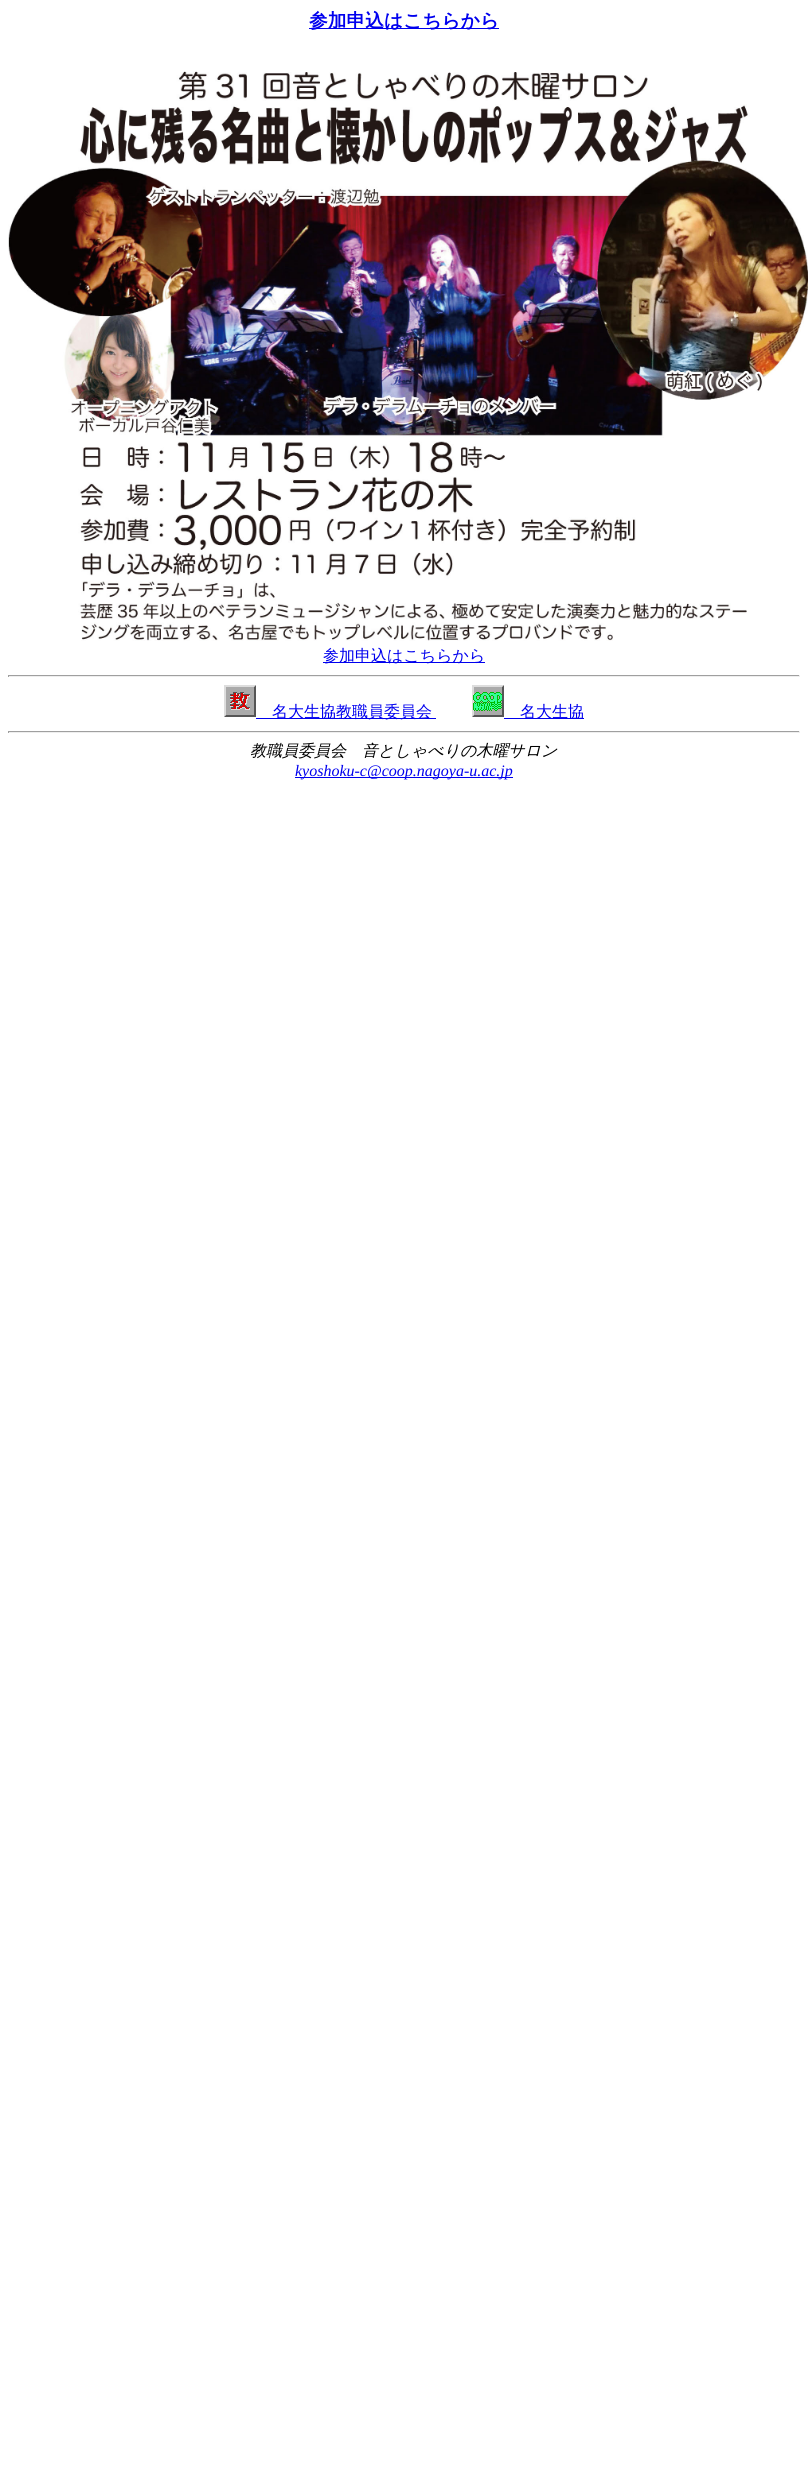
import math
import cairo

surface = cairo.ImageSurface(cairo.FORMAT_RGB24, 808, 2489)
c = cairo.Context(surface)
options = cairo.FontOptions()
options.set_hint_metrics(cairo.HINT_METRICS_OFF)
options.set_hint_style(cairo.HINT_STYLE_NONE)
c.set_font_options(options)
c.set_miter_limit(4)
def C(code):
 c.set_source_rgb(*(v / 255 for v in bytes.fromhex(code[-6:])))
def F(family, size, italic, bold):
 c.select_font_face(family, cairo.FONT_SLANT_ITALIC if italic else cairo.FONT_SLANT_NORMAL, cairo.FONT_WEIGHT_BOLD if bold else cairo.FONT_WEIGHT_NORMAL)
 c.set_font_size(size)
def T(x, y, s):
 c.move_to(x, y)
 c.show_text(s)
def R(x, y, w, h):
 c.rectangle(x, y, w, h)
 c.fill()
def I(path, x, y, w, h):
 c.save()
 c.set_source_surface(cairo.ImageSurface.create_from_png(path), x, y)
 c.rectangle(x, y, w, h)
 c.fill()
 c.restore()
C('ffffff')
c.paint()
C('0000ee')
R(309,28,190,1)
F('WenQuanYi Zen Hei',18.75,0,1)
T(309,27,'参加申込はこちらから')
I('1.png',8,71,800,570)
R(323,662,162,1)
F('WenQuanYi Zen Hei Medium',16,0,0)
T(323,661,'参加申込はこちらから')
C('9f9f9f')
R(8,675,792,1)
C('eeeeee')
R(799,675,1,2)
R(8,676,792,1)
C('9f9f9f')
R(8,675,1,2)
I('2.png',224,685,32,32)
C('0000ee')
R(256,718,180,1)
T(272,717,'名大生協教職員委員会')
I('3.png',472,685,32,32)
R(504,718,80,1)
T(520,717,'名大生協')
C('9f9f9f')
R(8,731,792,1)
C('eeeeee')
R(799,731,1,2)
R(8,732,792,1)
C('9f9f9f')
R(8,731,1,2)
F('WenQuanYi Zen Hei Medium',16,1,0)
C('000000')
T(250,756,'教職員委員会　音としゃべりの木曜サロン')
C('0000ee')
R(295,777,218,1)
F('Liberation Serif',16,1,0)
T(295,776,'kyoshoku-c@coop.nagoya-u.ac.jp')
surface.write_to_png('o.png')
